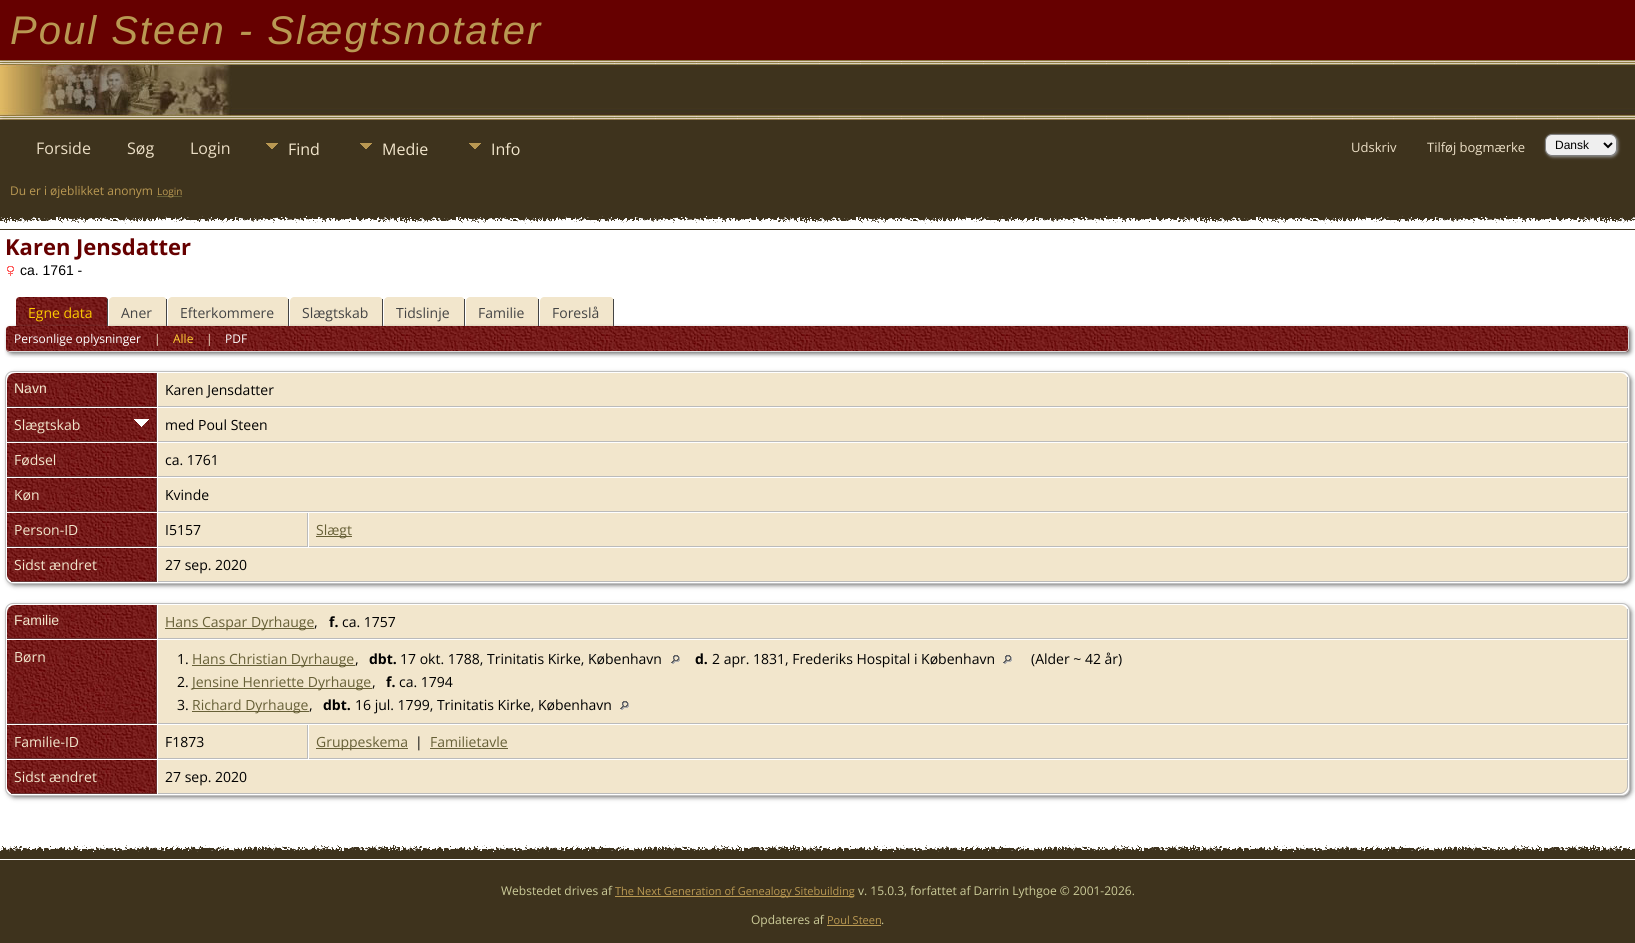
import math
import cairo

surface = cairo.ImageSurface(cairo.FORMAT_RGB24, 1635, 943)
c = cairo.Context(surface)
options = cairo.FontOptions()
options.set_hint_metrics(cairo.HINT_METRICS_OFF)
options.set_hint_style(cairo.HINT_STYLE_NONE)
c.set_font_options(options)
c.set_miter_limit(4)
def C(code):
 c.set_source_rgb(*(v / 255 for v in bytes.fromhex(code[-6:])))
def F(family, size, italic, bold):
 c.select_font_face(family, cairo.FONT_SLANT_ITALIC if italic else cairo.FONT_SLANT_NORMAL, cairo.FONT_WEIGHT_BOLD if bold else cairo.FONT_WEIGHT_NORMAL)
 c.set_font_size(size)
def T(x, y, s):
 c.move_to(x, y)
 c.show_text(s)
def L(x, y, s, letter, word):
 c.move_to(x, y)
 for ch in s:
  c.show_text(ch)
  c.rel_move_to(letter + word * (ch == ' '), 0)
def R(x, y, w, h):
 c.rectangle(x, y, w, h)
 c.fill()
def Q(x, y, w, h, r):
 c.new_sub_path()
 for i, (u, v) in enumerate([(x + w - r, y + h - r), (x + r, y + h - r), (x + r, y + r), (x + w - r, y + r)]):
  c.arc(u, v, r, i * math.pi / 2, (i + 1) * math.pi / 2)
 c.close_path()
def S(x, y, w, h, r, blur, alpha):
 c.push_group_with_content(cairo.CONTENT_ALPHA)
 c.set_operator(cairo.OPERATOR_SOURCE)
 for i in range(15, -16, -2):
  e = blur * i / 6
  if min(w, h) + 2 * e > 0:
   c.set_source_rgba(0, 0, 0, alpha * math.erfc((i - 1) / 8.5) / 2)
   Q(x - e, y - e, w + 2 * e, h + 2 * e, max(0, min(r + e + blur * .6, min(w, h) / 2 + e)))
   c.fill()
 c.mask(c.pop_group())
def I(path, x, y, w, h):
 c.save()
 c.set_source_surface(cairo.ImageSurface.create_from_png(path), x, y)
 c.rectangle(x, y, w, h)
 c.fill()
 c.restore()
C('3e331d')
c.paint()
C('660000')
R(0,0,1635,60)
F('Liberation Sans',40,1,0)
C('b99852')
L(10,44,'Poul Steen - Slægtsnotater',2,0)
I('1.png',533,60,1102,60)
I('2.png',0,60,533,60)
F('Open Sans',16,0,0)
C('ebdec5')
T(36,154,'Forside')
T(127,154,'Søg')
T(190,154,'Login')
I('3.png',266,143,12,6)
C('f2e6cc')
T(288,155,'Find')
I('3.png',360,143,12,6)
T(382,155,'Medie')
I('3.png',469,143,12,6)
T(491,155,'Info')
F('Open Sans',13,0,0)
C('ebdec5')
T(1351,152,'Udskriv')
T(1427,152,'Tilføj bogmærke')
C('999999')
S(1546,135,72,22,7,1.5,1)
C('efefef')
Q(1545.5,134.5,71,21,6.5)
c.fill_preserve()
C('808080')
c.set_line_width(1)
c.stroke()
c.new_path()
c.move_to(1604,143)
c.line_to(1608,147)
c.line_to(1612,143)
C('000000')
c.set_line_width(2)
c.stroke()
F('Liberation Sans',12,0,0)
T(1555,149,'Dansk')
F('Open Sans',12,0,0)
C('b99852')
T(10,195,'Du er i øjeblikket anonym')
C('676037')
R(157,196,25,1)
F('Open Sans',10,0,0)
C('b99852')
T(157,195,'Login')
I('4.png',0,216,1635,13)
C('ffffff')
R(0,230,1635,609)
F('Open Sans',22,0,1)
C('660000')
T(5,255,'Karen Jensdatter')
I('5.png',7,266,7,10)
F('Liberation Sans',14,0,0)
C('000000')
T(20,275,'ca. 1761 -')
I('6.png',16,297,92,29)
C('444444')
R(107,299,1,27)
F('Open Sans',14,0,0)
C('ffcc00')
T(28,318,'Egne data')
C('f2e6cc')
c.new_path()
c.move_to(113,297)
c.line_to(163,297)
c.curve_to(165,297,167,299,167,301)
c.line_to(167,326)
c.line_to(109,326)
c.line_to(109,301)
c.curve_to(109,299,111,297,113,297)
c.close_path()
c.fill()
C('444444')
R(166,299,1,27)
T(121,318,'Aner')
C('f2e6cc')
c.new_path()
c.move_to(172,297)
c.line_to(285,297)
c.curve_to(287,297,289,299,289,301)
c.line_to(289,326)
c.line_to(168,326)
c.line_to(168,301)
c.curve_to(168,299,170,297,172,297)
c.close_path()
c.fill()
C('444444')
R(288,299,1,27)
T(180,318,'Efterkommere')
C('f2e6cc')
c.new_path()
c.move_to(294,297)
c.line_to(379,297)
c.curve_to(381,297,383,299,383,301)
c.line_to(383,326)
c.line_to(290,326)
c.line_to(290,301)
c.curve_to(290,299,292,297,294,297)
c.close_path()
c.fill()
C('444444')
R(382,299,1,27)
T(302,318,'Slægtskab')
C('f2e6cc')
c.new_path()
c.move_to(388,297)
c.line_to(461,297)
c.curve_to(463,297,465,299,465,301)
c.line_to(465,326)
c.line_to(384,326)
c.line_to(384,301)
c.curve_to(384,299,386,297,388,297)
c.close_path()
c.fill()
C('444444')
R(464,299,1,27)
T(396,318,'Tidslinje')
C('f2e6cc')
c.new_path()
c.move_to(470,297)
c.line_to(535,297)
c.curve_to(537,297,539,299,539,301)
c.line_to(539,326)
c.line_to(466,326)
c.line_to(466,301)
c.curve_to(466,299,468,297,470,297)
c.close_path()
c.fill()
C('444444')
R(538,299,1,27)
T(478,318,'Familie')
C('f2e6cc')
c.new_path()
c.move_to(544,297)
c.line_to(610,297)
c.curve_to(612,297,614,299,614,301)
c.line_to(614,326)
c.line_to(540,326)
c.line_to(540,301)
c.curve_to(540,299,542,297,544,297)
c.close_path()
c.fill()
C('444444')
R(613,299,1,27)
T(552,318,'Foreslå')
I('7.png',4,324,1631,34)
C('dddddd')
c.set_fill_rule(cairo.FILL_RULE_EVEN_ODD)
c.new_path()
c.move_to(10,326)
c.line_to(1625,326)
c.curve_to(1627,326,1629,328,1629,330)
c.line_to(1629,348)
c.curve_to(1629,350,1627,352,1625,352)
c.line_to(10,352)
c.curve_to(8,352,6,350,6,348)
c.line_to(6,330)
c.curve_to(6,328,8,326,10,326)
c.close_path()
c.move_to(10,326)
c.line_to(1625,326)
c.curve_to(1627,326,1628,328,1628,330)
c.line_to(1628,348)
c.curve_to(1628,350,1627,351,1625,351)
c.line_to(10,351)
c.curve_to(8,351,6,350,6,348)
c.line_to(6,330)
c.curve_to(6,328,8,326,10,326)
c.close_path()
c.fill()
F('Open Sans',12,0,0)
C('ffffff')
T(14,343,'Personlige oplysninger')
C('f2e6cc')
T(154,343,'|')
C('ffcc33')
T(173,343,'Alle')
C('f2e6cc')
T(206,343,'|')
C('ffffff')
T(225,343,'PDF')
C('666666')
S(8,374,1623,211,7,2.5,1)
C('ffffff')
Q(5.5,371.5,1624,212,7.5)
c.fill_preserve()
C('c0c0c0')
c.set_line_width(1)
c.stroke()
I('8.png',7,373,149,33)
C('663333')
R(156,373,1,34)
R(7,406,150,1)
F('Liberation Sans',14,0,0)
C('f2e6cc')
T(14,393,'Navn')
c.new_path()
c.move_to(158,373)
c.line_to(1620,373)
c.curve_to(1624.5,373,1628,376.5,1628,381)
c.line_to(1628,407)
c.line_to(158,407)
c.close_path()
c.fill()
C('bbbbbb')
R(1627,377,1,30)
R(158,406,1470,1)
F('Open Sans',14,0,0)
C('000000')
T(165,395,'Karen Jensdatter')
I('9.png',7,408,149,33)
C('663333')
R(156,408,1,34)
R(7,441,150,1)
C('f2e6cc')
T(14,430,'Slægtskab')
I('10.png',134,419,15,8)
R(158,408,1469,33)
C('bbbbbb')
R(1627,408,1,34)
R(158,441,1470,1)
C('000000')
T(165,430,'med Poul Steen')
I('9.png',7,443,149,33)
C('663333')
R(156,443,1,34)
R(7,476,150,1)
C('f2e6cc')
T(14,465,'Fødsel')
R(158,443,1469,33)
C('bbbbbb')
R(1627,443,1,34)
R(158,476,1470,1)
C('000000')
T(165,465,'ca. 1761')
I('9.png',7,478,149,33)
C('663333')
R(156,478,1,34)
R(7,511,150,1)
C('f2e6cc')
T(14,500,'Køn')
R(158,478,1469,33)
C('bbbbbb')
R(1627,478,1,34)
R(158,511,1470,1)
C('000000')
T(165,500,'Kvinde')
I('9.png',7,513,149,33)
C('663333')
R(156,513,1,34)
R(7,546,150,1)
C('f2e6cc')
T(14,535,'Person-ID')
R(158,513,149,33)
C('bbbbbb')
R(307,513,1,34)
R(158,546,150,1)
C('000000')
T(165,535,'I5157')
C('f2e6cc')
R(309,513,1318,33)
C('bbbbbb')
R(1627,513,1,34)
R(309,546,1319,1)
C('676037')
R(316,536,36,1)
T(316,535,'Slægt')
C('660002')
c.new_path()
c.move_to(7,548)
c.line_to(157,548)
c.line_to(157,582)
c.line_to(15,582)
c.curve_to(10.5,582,7,578.5,7,574)
c.close_path()
c.fill()
I('11.png',7,548,149,33)
C('663333')
R(156,548,1,34)
R(11,581,146,1)
C('f2e6cc')
T(14,570,'Sidst ændret')
c.new_path()
c.move_to(158,548)
c.line_to(1628,548)
c.line_to(1628,574)
c.curve_to(1628,578.5,1624.5,582,1620,582)
c.line_to(158,582)
c.close_path()
c.fill()
C('bbbbbb')
c.new_path()
c.move_to(158,548)
c.line_to(1628,548)
c.line_to(1628,574)
c.curve_to(1628,578,1624,582,1620,582)
c.line_to(158,582)
c.close_path()
c.move_to(158,548)
c.line_to(1627,548)
c.line_to(1627,574)
c.curve_to(1627,578,1624,581,1620,581)
c.line_to(158,581)
c.close_path()
c.fill()
C('000000')
T(165,570,'27 sep. 2020')
C('666666')
S(8,606,1623,191,7,2.5,1)
C('ffffff')
Q(5.5,603.5,1624,192,7.5)
c.fill_preserve()
C('c0c0c0')
c.stroke()
I('8.png',7,605,149,33)
C('663333')
R(156,605,1,34)
R(7,638,150,1)
F('Liberation Sans',14,0,0)
C('f2e6cc')
T(14,625,'Familie')
c.new_path()
c.move_to(158,605)
c.line_to(1620,605)
c.curve_to(1624.5,605,1628,608.5,1628,613)
c.line_to(1628,639)
c.line_to(158,639)
c.close_path()
c.fill()
C('bbbbbb')
R(1627,609,1,30)
R(158,638,1470,1)
C('676037')
R(165,628,149,1)
F('Open Sans',14,0,0)
T(165,627,'Hans Caspar Dyrhauge')
C('000000')
T(314,627,',')
F('Open Sans',14,0,1)
T(329,627,'f.')
F('Open Sans',14,0,0)
T(342,627,'ca. 1757')
I('12.png',7,640,149,83)
C('663333')
R(156,640,1,84)
R(7,723,150,1)
C('f2e6cc')
T(14,662,'Børn')
R(158,640,1469,83)
C('bbbbbb')
R(1627,640,1,84)
R(158,723,1470,1)
C('000000')
T(177,664,'1.')
C('676037')
R(192,665,163,1)
T(192,664,'Hans Christian Dyrhauge')
C('000000')
T(355,664,',')
F('Open Sans',14,0,1)
T(369,664,'dbt.')
F('Open Sans',14,0,0)
T(400,664,'17 okt. 1788, Trinitatis Kirke, København')
I('13.png',671,655,9,9)
F('Open Sans',14,0,1)
T(695,664,'d.')
F('Open Sans',14,0,0)
T(712,664,'2 apr. 1831, Frederiks Hospital i København')
I('13.png',1003,655,9,9)
T(1031,664,'(Alder ~ 42 år)')
T(177,687,'2.')
C('676037')
R(192,688,180,1)
T(192,687,'Jensine Henriette Dyrhauge')
C('000000')
T(372,687,',')
F('Open Sans',14,0,1)
T(386,687,'f.')
F('Open Sans',14,0,0)
T(399,687,'ca. 1794')
T(177,710,'3.')
C('676037')
R(192,711,117,1)
T(192,710,'Richard Dyrhauge')
C('000000')
T(309,710,',')
F('Open Sans',14,0,1)
T(323,710,'dbt.')
F('Open Sans',14,0,0)
T(355,710,'16 jul. 1799, Trinitatis Kirke, København')
I('13.png',620,701,9,9)
I('9.png',7,725,149,33)
C('663333')
R(156,725,1,34)
R(7,758,150,1)
C('f2e6cc')
T(14,747,'Familie-ID')
R(158,725,149,33)
C('bbbbbb')
R(307,725,1,34)
R(158,758,150,1)
C('000000')
T(165,747,'F1873')
C('f2e6cc')
R(309,725,1318,33)
C('bbbbbb')
R(1627,725,1,34)
R(309,758,1319,1)
C('676037')
R(316,748,92,1)
T(316,747,'Gruppeskema')
C('000000')
T(415,747,'|')
C('676037')
T(430,747,'Familietavle')
R(430,748,78,1)
C('660002')
c.new_path()
c.move_to(7,760)
c.line_to(157,760)
c.line_to(157,794)
c.line_to(15,794)
c.curve_to(10.5,794,7,790.5,7,786)
c.close_path()
c.fill()
I('11.png',7,760,149,33)
C('663333')
R(156,760,1,34)
R(11,793,146,1)
C('f2e6cc')
T(14,782,'Sidst ændret')
c.new_path()
c.move_to(158,760)
c.line_to(1628,760)
c.line_to(1628,786)
c.curve_to(1628,790.5,1624.5,794,1620,794)
c.line_to(158,794)
c.close_path()
c.fill()
C('bbbbbb')
c.new_path()
c.move_to(158,760)
c.line_to(1628,760)
c.line_to(1628,786)
c.curve_to(1628,790,1624,794,1620,794)
c.line_to(158,794)
c.close_path()
c.move_to(158,760)
c.line_to(1627,760)
c.line_to(1627,786)
c.curve_to(1627,790,1624,793,1620,793)
c.line_to(158,793)
c.close_path()
c.fill()
C('000000')
T(165,782,'27 sep. 2020')
I('14.png',0,839,1635,21)
F('Open Sans',12,0,0)
C('cccc99')
T(501,895,'Webstedet drives af')
C('b99852')
R(615,896,239,1)
F('Open Sans',11,0,0)
T(615,895,'The Next Generation of Genealogy Sitebuilding')
F('Open Sans',12,0,0)
C('cccc99')
T(858,895,'v. 15.0.3, forfattet af Darrin Lythgoe © 2001-2026.')
T(751,924,'Opdateres af')
F('Open Sans',11,0,0)
C('b99852')
T(827,924,'Poul Steen')
R(827,925,54,1)
F('Open Sans',12,0,0)
C('cccc99')
T(881,924,'.')
surface.write_to_png('o.png')
